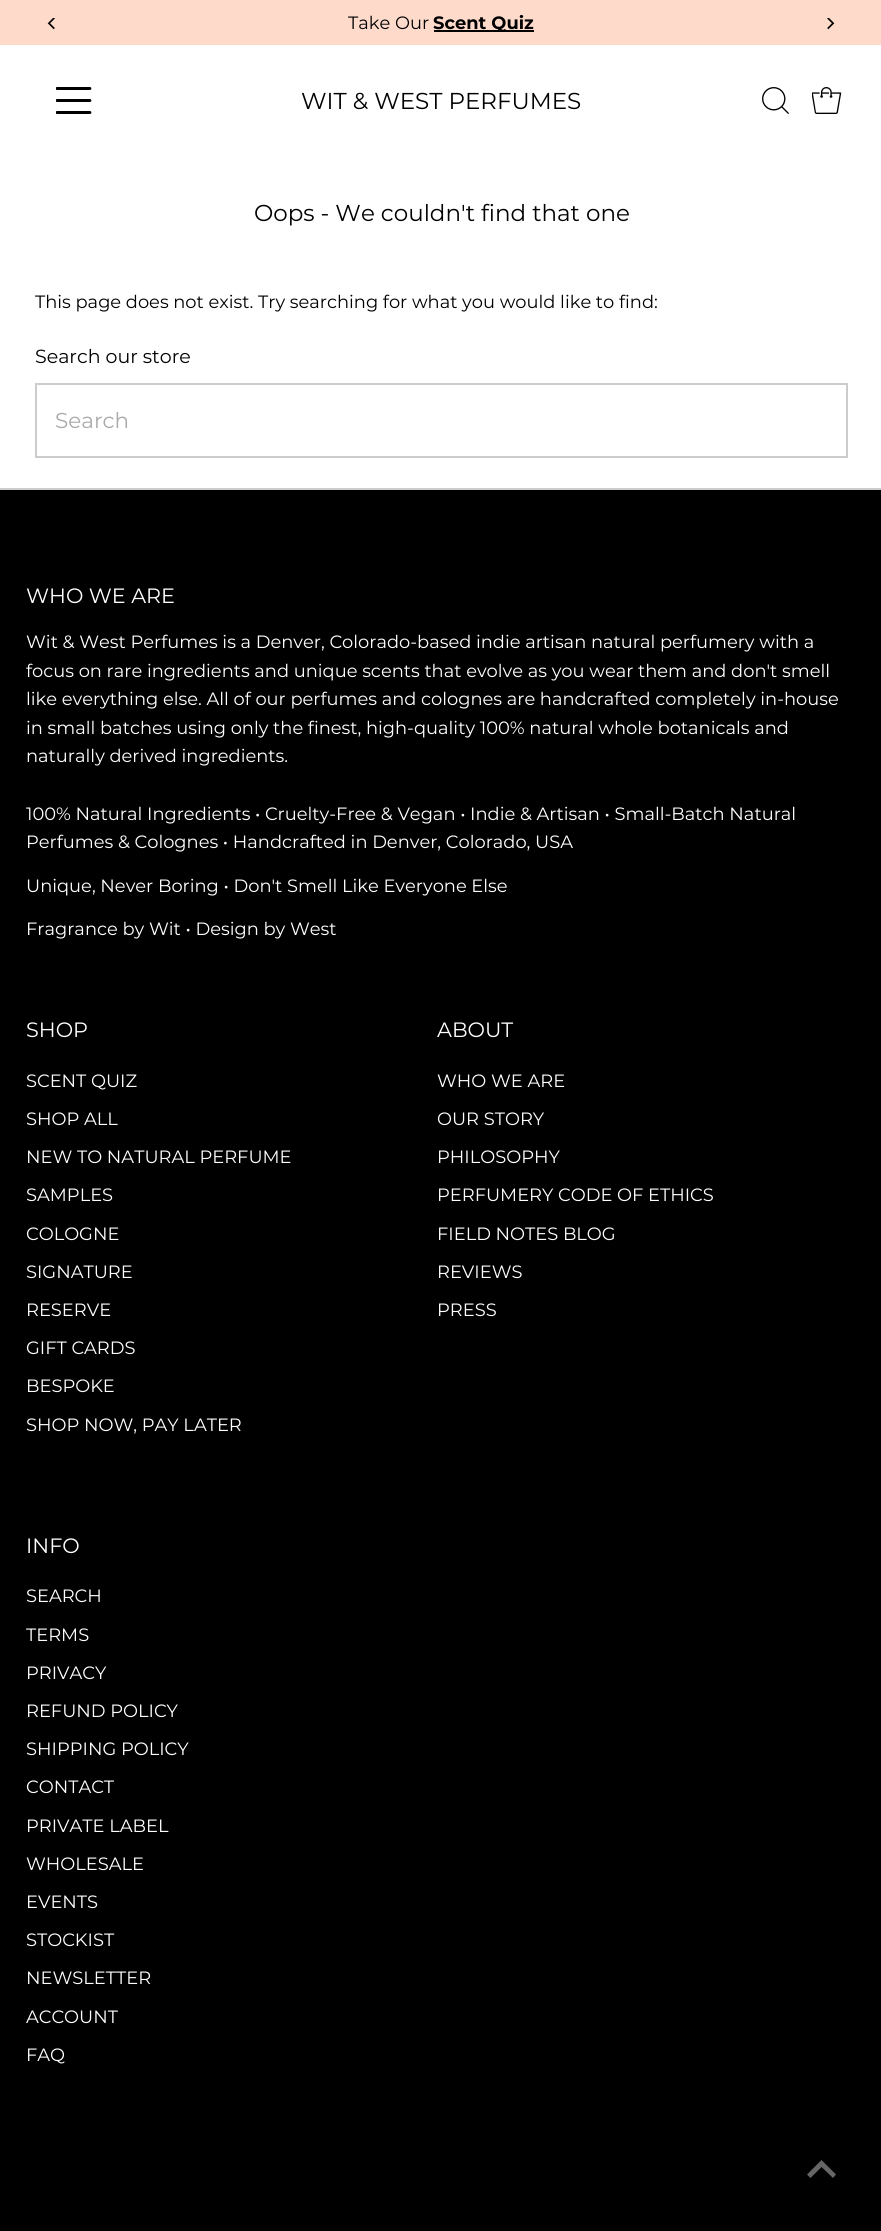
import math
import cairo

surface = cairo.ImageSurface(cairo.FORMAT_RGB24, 881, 2231)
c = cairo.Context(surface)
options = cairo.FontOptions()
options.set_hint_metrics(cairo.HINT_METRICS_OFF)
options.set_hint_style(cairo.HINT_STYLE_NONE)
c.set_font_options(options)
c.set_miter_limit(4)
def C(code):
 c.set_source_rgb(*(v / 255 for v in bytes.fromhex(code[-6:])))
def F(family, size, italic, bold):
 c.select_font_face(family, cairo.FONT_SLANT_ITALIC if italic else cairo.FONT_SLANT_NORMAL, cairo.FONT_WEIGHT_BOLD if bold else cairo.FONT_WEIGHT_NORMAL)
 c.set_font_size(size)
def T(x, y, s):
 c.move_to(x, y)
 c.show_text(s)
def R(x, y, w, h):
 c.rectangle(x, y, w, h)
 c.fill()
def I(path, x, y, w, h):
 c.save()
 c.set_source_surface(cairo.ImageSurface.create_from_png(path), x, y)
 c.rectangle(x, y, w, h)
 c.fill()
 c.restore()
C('ffffff')
c.paint()
C('fedacb')
R(0,0,881,45)
I('1.png',47,18,8,12)
F('Montserrat',17.85,0,0)
C('000000')
T(348,29,'Take Our')
R(434,30,100,2)
F('Montserrat',17.85,0,1)
T(433,29,'Scent Quiz')
I('2.png',827,18,8,12)
I('3.png',56,87,36,27)
F('Montserrat',23,0,0)
T(301,109,'WIT & WEST PERFUMES')
I('4.png',762,87,27,27)
I('5.png',812,87,30,27)
T(254,221,'Oops - We couldn\'t find that one')
F('Montserrat',17.85,0,0)
T(35,308,'This page does not exist. Try searching for what you would like to find:')
F('Montserrat',19,0,0)
T(35,363,'Search our store')
c.rectangle(36,384,811,73)
C('cccccc')
c.stroke()
F('Montserrat',21.5,0,0)
C('aaaaaa')
T(55,428,'Search')
C('000000')
R(0,490,881,1741)
C('cccccc')
R(0,488,881,2)
F('Montserrat',20.75,0,0)
C('ffffff')
T(26,603,'WHO WE ARE')
F('Montserrat',17.85,0,0)
T(26,648,'Wit & West Perfumes is a Denver, Colorado-based indie artisan natural perfumery with a')
T(26,677,'focus on rare ingredients and unique scents that evolve as you wear them and don\'t smell')
T(26,705,'like everything else. All of our perfumes and colognes are handcrafted completely in-house')
T(26,734,'in small batches using only the finest, high-quality 100% natural whole botanicals and')
T(26,762,'naturally derived ingredients.')
T(26,820,'100% Natural Ingredients • Cruelty-Free & Vegan • Indie & Artisan • Small-Batch Natural')
T(26,848,'Perfumes & Colognes • Handcrafted in Denver, Colorado, USA')
T(26,892,'Unique, Never Boring • Don\'t Smell Like Everyone Else')
T(26,935,'Fragrance by Wit • Design by West')
F('Montserrat',20.75,0,0)
T(26,1037,'SHOP')
F('Montserrat',17.85,0,0)
T(26,1087,'SCENT QUIZ')
T(26,1125,'SHOP ALL')
T(26,1163,'NEW TO NATURAL PERFUME')
T(26,1201,'SAMPLES')
T(26,1240,'COLOGNE')
T(26,1278,'SIGNATURE')
T(26,1316,'RESERVE')
T(26,1354,'GIFT CARDS')
T(26,1392,'BESPOKE')
T(26,1431,'SHOP NOW, PAY LATER')
F('Montserrat',20.75,0,0)
T(437,1037,'ABOUT')
F('Montserrat',17.85,0,0)
T(437,1087,'WHO WE ARE')
T(437,1125,'OUR STORY')
T(437,1163,'PHILOSOPHY')
T(437,1201,'PERFUMERY CODE OF ETHICS')
T(437,1240,'FIELD NOTES BLOG')
T(437,1278,'REVIEWS')
T(437,1316,'PRESS')
F('Montserrat',20.75,0,0)
T(26,1553,'INFO')
F('Montserrat',17.85,0,0)
T(26,1602,'SEARCH')
T(26,1641,'TERMS')
T(26,1679,'PRIVACY')
T(26,1717,'REFUND POLICY')
T(26,1755,'SHIPPING POLICY')
T(26,1793,'CONTACT')
T(26,1832,'PRIVATE LABEL')
T(26,1870,'WHOLESALE')
T(26,1908,'EVENTS')
T(26,1946,'STOCKIST')
T(26,1984,'NEWSLETTER')
T(26,2023,'ACCOUNT')
T(26,2061,'FAQ')
C('666666')
c.new_path()
c.move_to(821.5,2160)
c.line_to(807,2174.5)
c.line_to(810.5,2178)
c.line_to(821.5,2167)
c.line_to(833,2178)
c.line_to(836,2174.5)
c.close_path()
c.fill()
surface.write_to_png('o.png')
